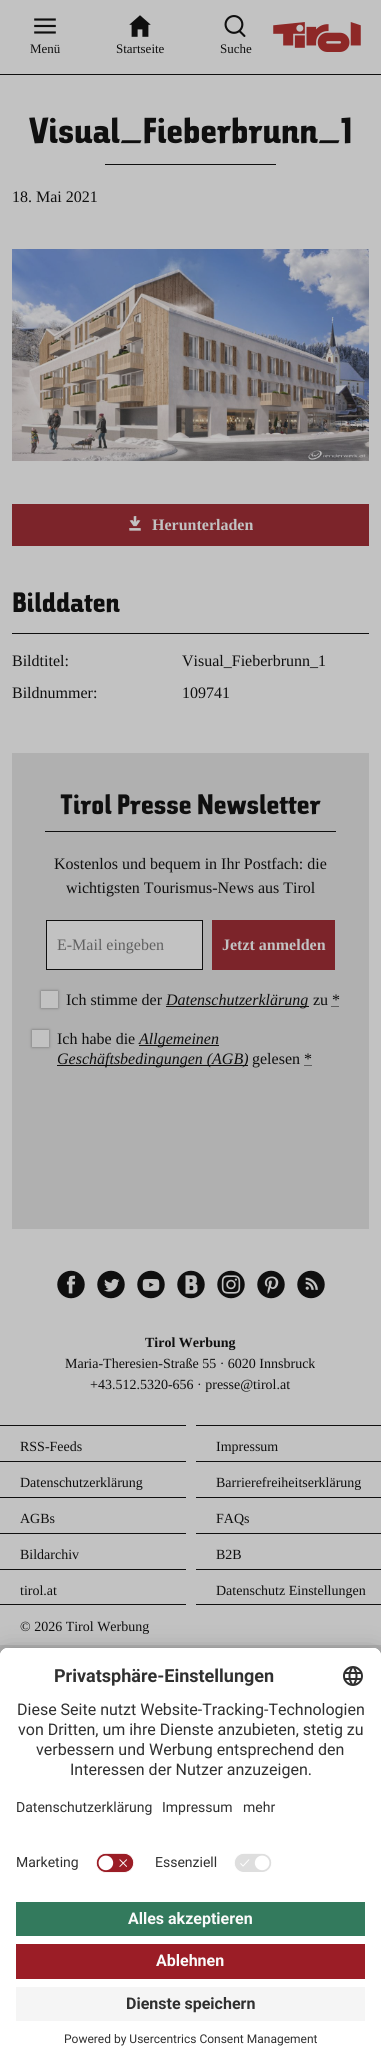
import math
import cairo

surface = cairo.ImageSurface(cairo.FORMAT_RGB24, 381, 2063)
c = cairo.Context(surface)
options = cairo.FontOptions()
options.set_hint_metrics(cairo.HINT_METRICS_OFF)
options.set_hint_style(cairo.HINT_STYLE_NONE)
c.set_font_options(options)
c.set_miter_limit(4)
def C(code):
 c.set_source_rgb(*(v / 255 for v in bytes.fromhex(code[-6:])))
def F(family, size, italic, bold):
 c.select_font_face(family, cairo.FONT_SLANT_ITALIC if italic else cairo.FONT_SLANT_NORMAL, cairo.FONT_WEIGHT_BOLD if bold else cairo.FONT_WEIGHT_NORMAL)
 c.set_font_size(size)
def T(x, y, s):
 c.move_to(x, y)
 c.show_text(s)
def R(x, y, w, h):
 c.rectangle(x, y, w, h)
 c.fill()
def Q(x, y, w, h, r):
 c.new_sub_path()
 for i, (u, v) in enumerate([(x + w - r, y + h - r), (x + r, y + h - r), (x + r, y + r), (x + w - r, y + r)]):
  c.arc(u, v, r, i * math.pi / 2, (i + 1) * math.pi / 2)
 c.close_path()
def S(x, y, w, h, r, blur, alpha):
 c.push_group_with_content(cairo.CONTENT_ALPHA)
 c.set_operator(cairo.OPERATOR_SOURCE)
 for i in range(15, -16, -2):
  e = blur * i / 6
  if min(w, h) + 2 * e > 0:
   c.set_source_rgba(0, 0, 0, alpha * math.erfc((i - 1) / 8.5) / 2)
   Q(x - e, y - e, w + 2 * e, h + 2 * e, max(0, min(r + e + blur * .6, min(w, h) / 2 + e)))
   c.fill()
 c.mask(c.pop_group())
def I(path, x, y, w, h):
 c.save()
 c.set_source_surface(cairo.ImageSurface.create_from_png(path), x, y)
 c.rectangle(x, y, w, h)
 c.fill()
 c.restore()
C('b0b0b0')
c.paint()
C('c2c2c2')
R(0,0,381,1645)
C('0f0f0f')
R(0,74,381,1)
I('1.png',34,18,22,16)
F('Liberation Serif',13,0,0)
T(30,53,'Menü')
I('2.png',129,15,22,22)
T(116,53,'Startseite')
I('3.png',224,15,22,22)
T(220,53,'Suche')
I('4.png',273,22,88,30)
F('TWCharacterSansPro',36,0,0)
T(29,143,'Visual_Fieberbrunn_1')
R(105,164,171,1)
F('Liberation Serif',16,0,0)
T(12,202,'18. Mai 2021')
I('5.png',12,249,357,212)
C('7c242a')
R(12,504,357,42)
I('6.png',129,516,12,15)
F('Liberation Serif',16,0,1)
C('c2c2c2')
T(152,530,'Herunterladen')
F('TWCharacterSansPro',28,0,0)
C('0f0f0f')
T(12,612,'Bilddaten')
R(12,633,357,1)
F('Liberation Serif',16,0,0)
T(12,666,'Bildtitel:')
T(182,666,'Visual_Fieberbrunn_1')
T(12,698,'Bildnummer:')
T(182,698,'109741')
C('b0b0b0')
R(12,753,357,476)
F('TWCharacterSansPro',28,0,0)
C('0f0f0f')
T(60,814,'Tirol Presse Newsletter')
R(45,831,291,1)
F('Liberation Serif',16,0,0)
T(54,869,'Kostenlos und bequem in Ihr Postfach: die')
T(66,893,'wichtigsten Tourismus-News aus Tirol')
C('c2c2c2')
c.rectangle(46.5,920.5,156,49)
c.fill_preserve()
C('0f0f0f')
c.set_line_width(1)
c.stroke()
C('616161')
T(57,950,'E-Mail eingeben')
C('7c242a')
R(212,920,123,50)
F('Liberation Serif',16,0,1)
C('c2c2c2')
T(222,950,'Jetzt anmelden')
C('0f0f0f')
S(41,991,17,17,0,1.5,.4)
C('c2c2c2')
R(41,991,17,17)
F('Liberation Serif',16,0,0)
C('0f0f0f')
T(66,1005,'Ich stimme der')
R(166,1006,143,1)
F('Liberation Serif',16,1,0)
T(166,1005,'Datenschutzerklärung')
F('Liberation Serif',16,0,0)
T(313,1005,'zu *')
c.new_path()
c.move_to(331.5,1006.5)
c.line_to(339.5,1006.5)
c.set_dash([1,1])
c.stroke()
C('0f0f0f')
S(32,1030,17,17,0,1.5,.4)
C('c2c2c2')
R(32,1030,17,17)
C('0f0f0f')
T(57,1044,'Ich habe die')
R(139,1045,80,1)
F('Liberation Serif',16,1,0)
T(139,1044,'Allgemeinen')
R(57,1065,191,1)
T(57,1064,'Geschäftsbedingungen (AGB)')
F('Liberation Serif',16,0,0)
T(252,1064,'gelesen *')
c.new_path()
c.move_to(304.5,1065.5)
c.line_to(312.5,1065.5)
c.stroke()
I('7.png',57,1270,28,29)
I('8.png',97,1270,28,29)
I('9.png',137,1270,28,29)
I('10.png',177,1270,28,29)
I('11.png',217,1270,28,29)
I('12.png',257,1270,28,29)
I('13.png',297,1270,28,29)
F('Liberation Serif',14,0,1)
T(145,1347,'Tirol Werbung')
F('Liberation Serif',14,0,0)
T(65,1368,'Maria-Theresien-Straße 55 · 6020 Innsbruck')
T(90,1389,'+43.512.5320-656 · presse@tirol.at')
R(0,1425,186,1)
T(20,1451,'RSS-Feeds')
R(196,1425,185,1)
T(216,1451,'Impressum')
R(0,1461,186,1)
T(20,1487,'Datenschutzerklärung')
R(196,1461,185,1)
T(216,1487,'Barrierefreiheitserklärung')
R(0,1497,186,1)
T(20,1523,'AGBs')
R(196,1497,185,1)
T(216,1523,'FAQs')
R(0,1533,186,1)
T(20,1559,'Bildarchiv')
R(196,1533,185,1)
T(216,1559,'B2B')
R(0,1569,186,1)
R(0,1604,186,1)
T(20,1595,'tirol.at')
R(196,1569,185,1)
R(196,1604,185,1)
T(216,1595,'Datenschutz Einstellungen')
T(20,1631,'© 2026 Tirol Werbung')
C('000000')
S(0,1668,381,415,8,14,.3)
S(0,1653,381,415,8,13,.22)
C('ffffff')
c.new_path()
c.move_to(8,1648)
c.line_to(373,1648)
c.curve_to(377.5,1648,381,1651.5,381,1656)
c.line_to(381,2063)
c.line_to(0,2063)
c.line_to(0,1656)
c.curve_to(0,1651.5,3.5,1648,8,1648)
c.close_path()
c.fill()
c.new_path()
c.move_to(8,1648)
c.line_to(373,1648)
c.curve_to(377.5,1648,381,1651.5,381,1656)
c.line_to(381,1890)
c.line_to(0,1890)
c.line_to(0,1656)
c.curve_to(0,1651.5,3.5,1648,8,1648)
c.close_path()
c.fill()
c.new_path()
c.move_to(8,1648)
c.line_to(373,1648)
c.curve_to(377.5,1648,381,1651.5,381,1656)
c.line_to(381,1846)
c.line_to(0,1846)
c.line_to(0,1656)
c.curve_to(0,1651.5,3.5,1648,8,1648)
c.close_path()
c.fill()
F('Roboto',18,0,1)
C('303030')
T(54,1682,'Privatsphäre-Einstellungen')
I('14.png',343,1666,20,20)
F('Roboto',16,0,0)
T(17,1715,'Diese Seite nutzt Website-Tracking-Technologien')
T(18,1735,'von Dritten, um ihre Dienste anzubieten, stetig zu')
T(36,1755,'verbessern und Werbung entsprechend den')
T(70,1775,'Interessen der Nutzer anzuzeigen.')
F('Roboto',14,0,0)
T(16,1812,'Datenschutzerklärung')
T(162,1812,'Impressum')
T(243,1812,'mehr')
T(16,1867,'Marketing')
I('15.png',96,1853,38,20)
T(155,1867,'Essenziell')
I('16.png',234,1853,38,19)
C('337a5d')
R(16,1902,349,34)
F('Roboto',16,0,1)
C('fafafa')
T(128,1924,'Alles akzeptieren')
C('9b1d26')
R(16,1944,349,35)
C('fafafa')
T(156,1966,'Ablehnen')
C('f5f5f5')
R(16,1987,349,34)
C('303030')
T(126,2009,'Dienste speichern')
F('Roboto',12,0,0)
T(64,2043,'Powered by Usercentrics Consent Management')
surface.write_to_png('o.png')
